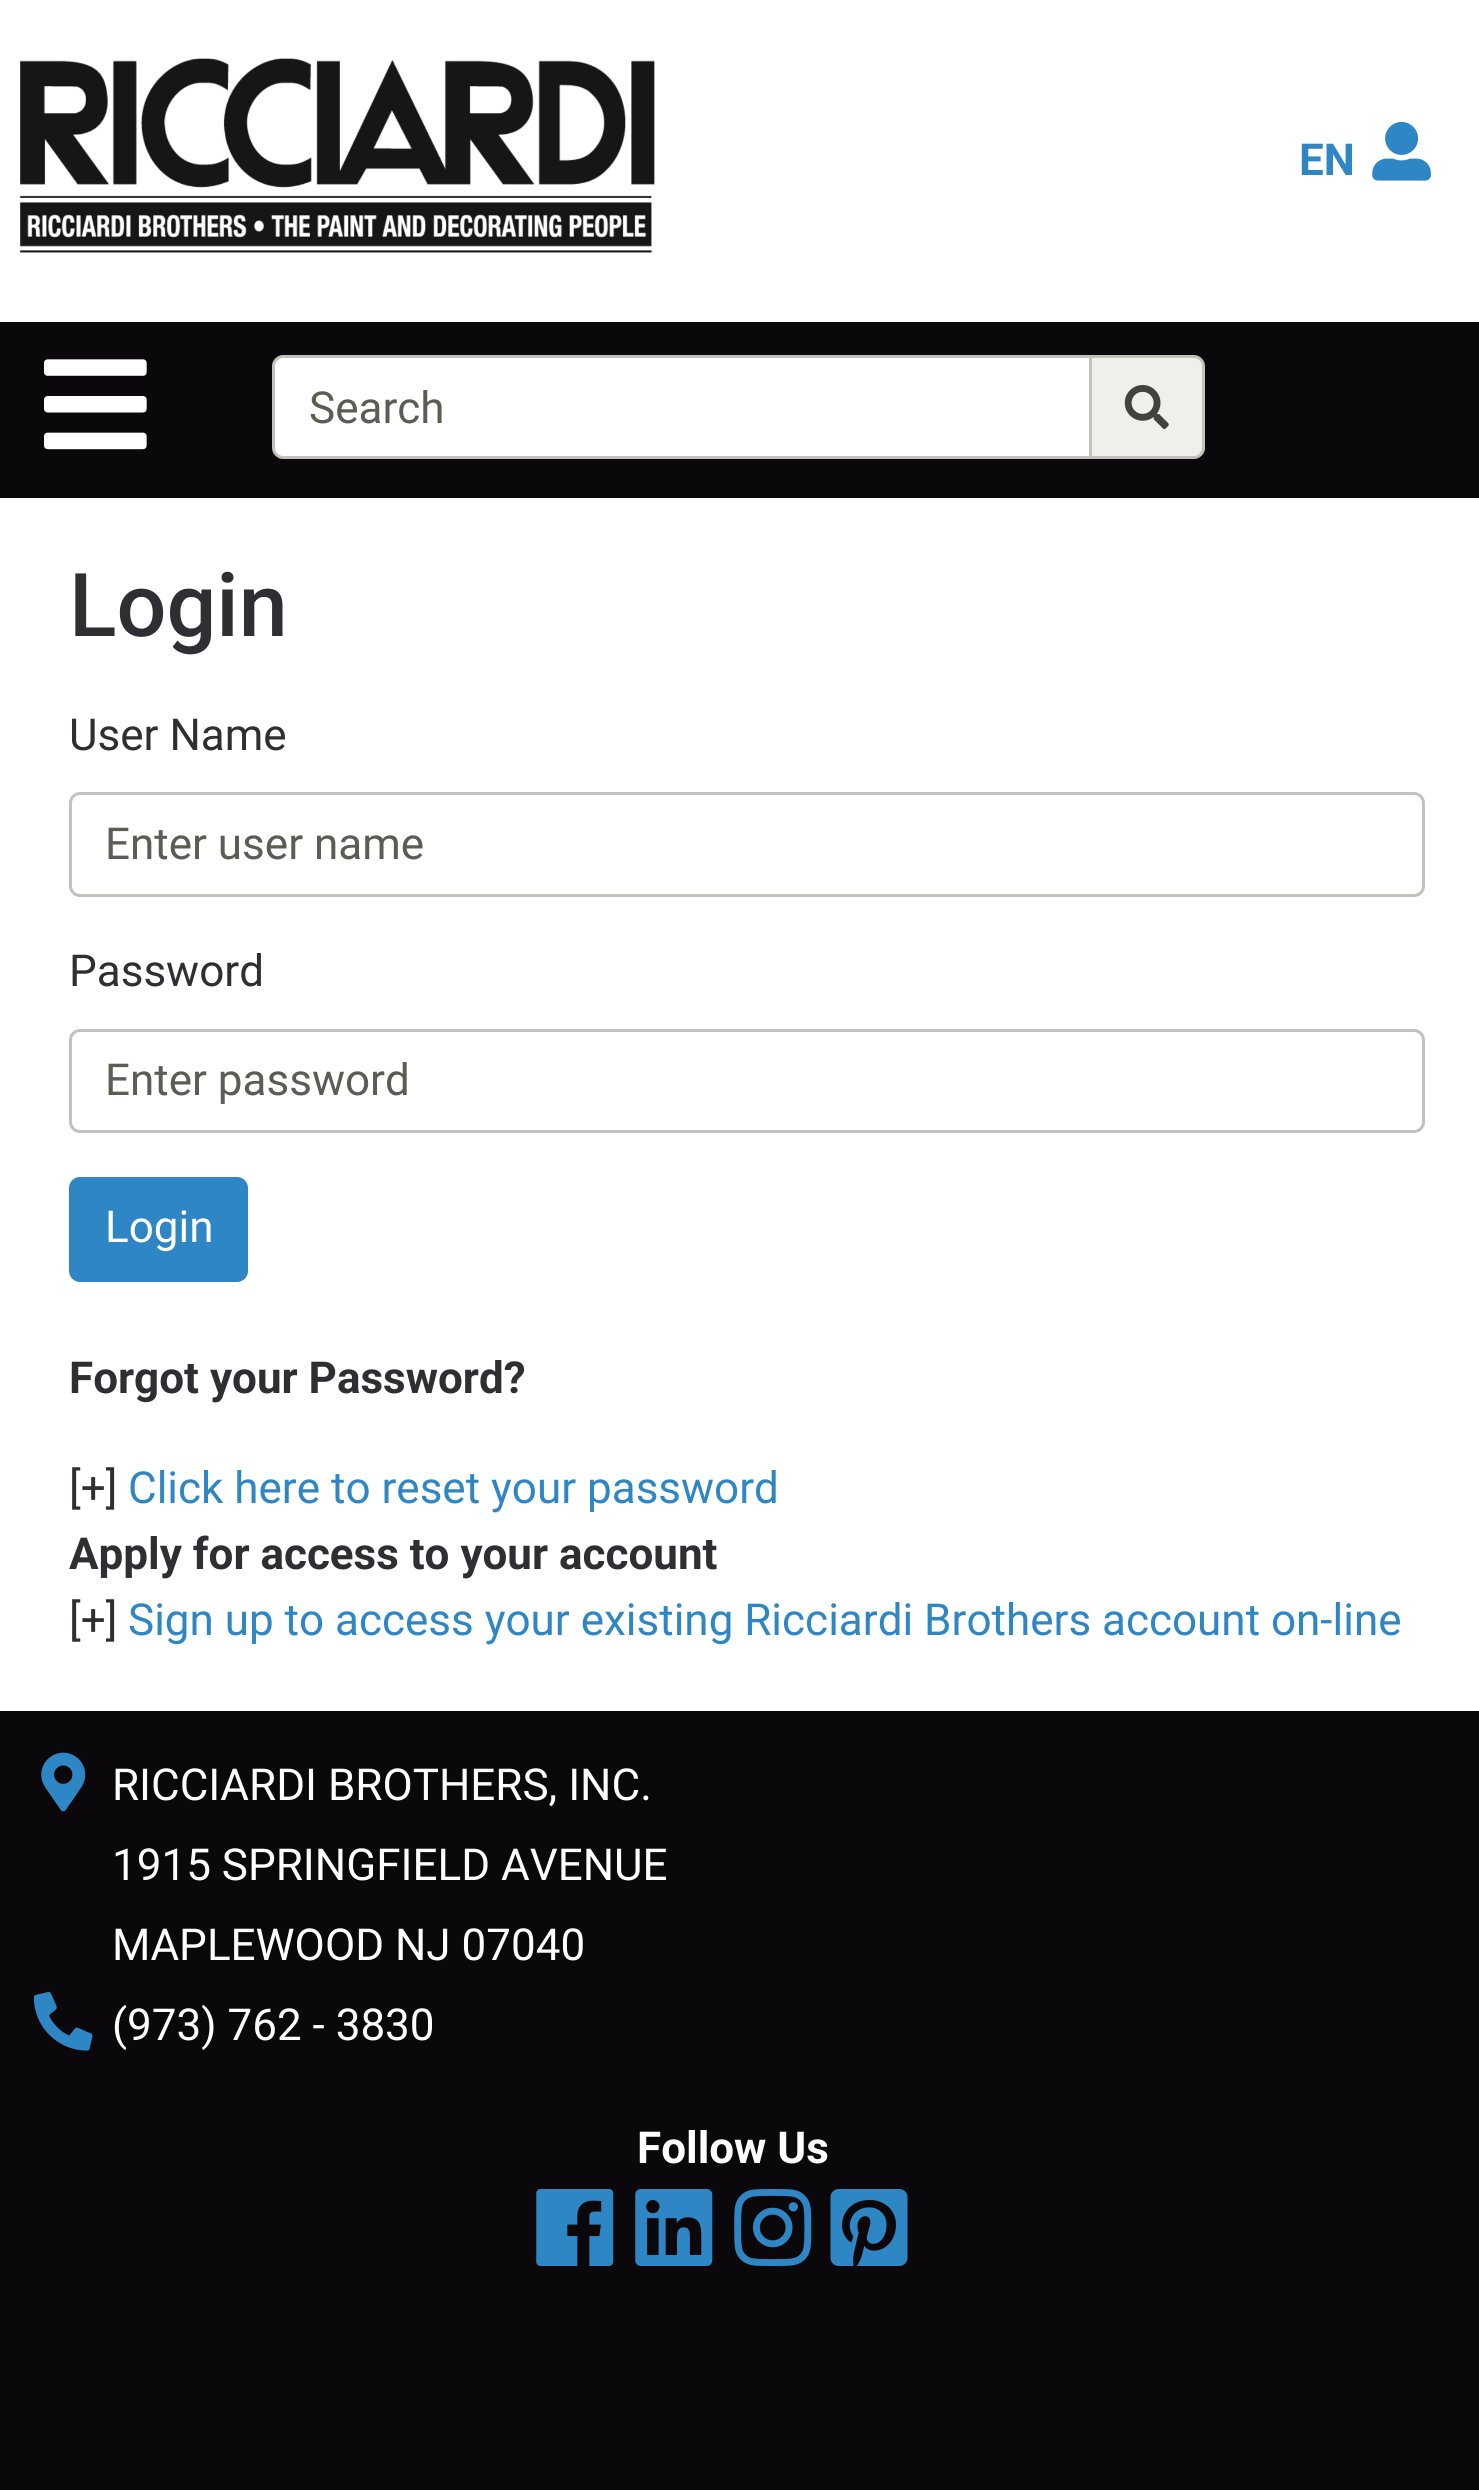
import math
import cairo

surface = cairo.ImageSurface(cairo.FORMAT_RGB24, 1479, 2490)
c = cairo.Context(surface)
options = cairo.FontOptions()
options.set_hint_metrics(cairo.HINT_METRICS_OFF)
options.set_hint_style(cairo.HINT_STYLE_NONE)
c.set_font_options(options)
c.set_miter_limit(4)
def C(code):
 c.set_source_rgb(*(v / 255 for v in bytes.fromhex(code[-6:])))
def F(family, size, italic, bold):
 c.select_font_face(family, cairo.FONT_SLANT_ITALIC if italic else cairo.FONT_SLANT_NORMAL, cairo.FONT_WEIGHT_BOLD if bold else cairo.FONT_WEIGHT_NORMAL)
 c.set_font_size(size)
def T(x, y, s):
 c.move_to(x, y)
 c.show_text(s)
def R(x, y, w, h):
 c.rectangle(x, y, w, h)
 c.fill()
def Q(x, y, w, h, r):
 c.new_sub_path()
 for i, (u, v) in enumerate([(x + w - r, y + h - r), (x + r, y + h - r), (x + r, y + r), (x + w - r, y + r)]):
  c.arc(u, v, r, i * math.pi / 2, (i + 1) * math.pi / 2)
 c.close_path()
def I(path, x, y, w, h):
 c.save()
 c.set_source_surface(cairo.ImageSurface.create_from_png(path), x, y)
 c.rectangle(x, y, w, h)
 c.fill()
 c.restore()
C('0a080a')
c.paint()
C('ffffff')
R(0,0,1479,1711)
I('1.png',19,58,636,195)
F('Roboto',44,0,1)
C('2f86c4')
T(1299,175,'EN')
I('2.png',1372,121,59,60)
C('0a080a')
R(0,322,1479,176)
I('3.png',44,359,103,91)
C('ffffff')
c.new_path()
c.move_to(283,356.5)
c.line_to(1090.5,356.5)
c.line_to(1090.5,457.5)
c.line_to(283,457.5)
c.curve_to(278,457.5,273.5,453,273.5,448)
c.line_to(273.5,366)
c.curve_to(273.5,361,278,356.5,283,356.5)
c.close_path()
c.fill_preserve()
C('c1c2bc')
c.set_line_width(3)
c.stroke()
F('Roboto',44,0,0)
C('5b5d55')
T(309,423,'Search')
C('eff0ec')
c.new_path()
c.move_to(1090.5,356.5)
c.line_to(1194,356.5)
c.curve_to(1199,356.5,1203.5,361,1203.5,366)
c.line_to(1203.5,448)
c.curve_to(1203.5,453,1199,457.5,1194,457.5)
c.line_to(1090.5,457.5)
c.close_path()
c.fill_preserve()
C('c1c2bc')
c.stroke()
I('4.png',1124,385,45,44)
F('Roboto Medium',88,0,0)
C('2f2e33')
T(69,636,'Login')
F('Roboto',44,0,0)
T(69,750,'User Name')
Q(70.5,793.5,1353,102,9.5)
C('c1c2bc')
c.stroke()
C('5b5d55')
T(105,859,'Enter user name')
C('2f2e33')
T(69,986,'Password')
Q(70.5,1030.5,1353,101,9.5)
C('c1c2bc')
c.stroke()
C('5b5d55')
T(105,1095,'Enter password')
C('2f86c4')
Q(70.5,1178.5,176,102,9.5)
c.fill_preserve()
c.stroke()
C('ffffff')
T(105,1242,'Login')
F('Roboto',44,0,1)
C('2f2e33')
T(69,1393,'Forgot your Password?')
F('Roboto',44,0,0)
T(69,1503,'[+]')
C('2f86c4')
T(128,1503,'Click here to reset your password')
F('Roboto',44,0,1)
C('2f2e33')
T(69,1569,'Apply for access to your account')
F('Roboto',44,0,0)
T(69,1635,'[+]')
C('2f86c4')
T(128,1635,'Sign up to access your existing Ricciardi Brothers account on-line')
I('5.png',41,1752,45,60)
C('ffffff')
T(112,1800,'RICCIARDI BROTHERS, INC.')
T(112,1880,'1915 SPRINGFIELD AVENUE')
T(112,1960,'MAPLEWOOD NJ 07040')
I('6.png',33,1992,60,59)
T(112,2040,'(973) 762 - 3830')
F('Roboto',44,0,1)
T(637,2163,'Follow Us')
I('7.png',536,2189,78,77)
I('8.png',635,2189,78,77)
I('9.png',734,2189,78,77)
I('10.png',830,2189,78,77)
surface.write_to_png('o.png')
